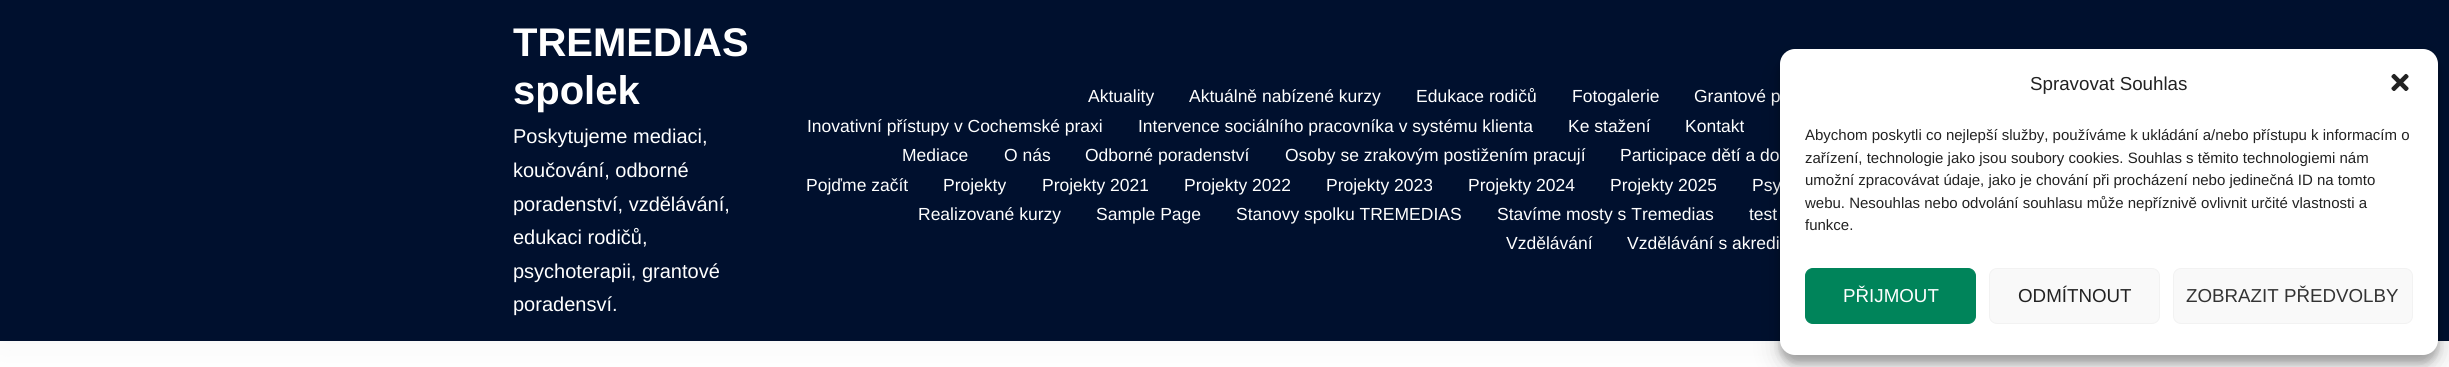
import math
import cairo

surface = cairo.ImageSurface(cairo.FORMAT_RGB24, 2449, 367)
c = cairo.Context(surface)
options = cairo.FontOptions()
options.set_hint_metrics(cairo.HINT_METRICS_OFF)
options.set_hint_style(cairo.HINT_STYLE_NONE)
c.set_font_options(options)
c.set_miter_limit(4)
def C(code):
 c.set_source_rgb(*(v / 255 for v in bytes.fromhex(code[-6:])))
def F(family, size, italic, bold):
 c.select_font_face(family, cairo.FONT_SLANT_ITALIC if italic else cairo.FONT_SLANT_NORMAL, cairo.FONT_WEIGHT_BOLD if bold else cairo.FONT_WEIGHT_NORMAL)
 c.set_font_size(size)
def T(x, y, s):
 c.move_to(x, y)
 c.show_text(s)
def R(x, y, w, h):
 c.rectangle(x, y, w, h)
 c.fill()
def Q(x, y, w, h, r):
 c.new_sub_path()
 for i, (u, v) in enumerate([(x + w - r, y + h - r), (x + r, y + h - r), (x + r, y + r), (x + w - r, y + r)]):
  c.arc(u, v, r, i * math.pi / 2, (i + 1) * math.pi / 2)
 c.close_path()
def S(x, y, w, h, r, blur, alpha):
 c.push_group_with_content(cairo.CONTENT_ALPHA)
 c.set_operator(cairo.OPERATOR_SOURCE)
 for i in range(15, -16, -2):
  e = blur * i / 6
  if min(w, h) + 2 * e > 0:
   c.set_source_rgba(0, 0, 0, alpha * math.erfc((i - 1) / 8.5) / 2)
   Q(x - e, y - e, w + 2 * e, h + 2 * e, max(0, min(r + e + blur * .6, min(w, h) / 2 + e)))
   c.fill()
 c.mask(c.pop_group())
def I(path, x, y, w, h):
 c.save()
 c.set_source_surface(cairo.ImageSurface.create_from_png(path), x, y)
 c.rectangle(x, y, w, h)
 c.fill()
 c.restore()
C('ffffff')
c.paint()
C('000000')
S(0,0,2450,341,0,19,.05)
C('00102e')
R(0,0,2449,341)
F('Liberation Sans',40,0,1)
C('ffffff')
T(513,56,'TREMEDIAS')
T(513,104,'spolek')
F('Liberation Sans',20,0,0)
T(513,143,'Poskytujeme mediaci,')
T(513,177,'koučování, odborné')
T(513,211,'poradenství, vzdělávání,')
T(513,244,'edukaci rodičů,')
T(513,278,'psychoterapii, grantové')
T(513,311,'poradensví.')
F('Liberation Sans',17.5,0,0)
T(1088,102,'Aktuality')
T(1189,102,'Aktuálně nabízené kurzy')
T(1416,102,'Edukace rodičů')
T(1572,102,'Fotogalerie')
T(1694,102,'Grantové p')
T(807,132,'Inovativní přístupy v Cochemské praxi')
T(1138,132,'Intervence sociálního pracovníka v systému klienta')
T(1568,132,'Ke stažení')
T(1685,132,'Kontakt')
T(902,161,'Mediace')
T(1004,161,'O nás')
T(1085,161,'Odborné poradenství')
T(1285,161,'Osoby se zrakovým postižením pracují')
T(1620,161,'Participace dětí a do')
T(806,191,'Pojďme začít')
T(943,191,'Projekty')
T(1042,191,'Projekty 2021')
T(1184,191,'Projekty 2022')
T(1326,191,'Projekty 2023')
T(1468,191,'Projekty 2024')
T(1610,191,'Projekty 2025')
T(1752,191,'Psy')
T(918,220,'Realizované kurzy')
T(1096,220,'Sample Page')
T(1236,220,'Stanovy spolku TREMEDIAS')
T(1497,220,'Stavíme mosty s Tremedias')
T(1749,220,'test')
T(1506,249,'Vzdělávání')
T(1627,249,'Vzdělávání s akredi')
C('000000')
S(1780,56,658,307,15,4,.23)
S(1780,61,658,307,15,12.5,.19)
C('ffffff')
Q(1780,49,658,306,15)
c.fill()
F('Liberation Sans',18.75,0,0)
C('222222')
T(2030,90,'Spravovat Souhlas')
I('1.png',2391,73,18,18)
F('Liberation Sans',15,0,0)
T(1805,140,'Abychom poskytli co nejlepší služby, používáme k ukládání a/nebo přístupu k informacím o')
T(1805,163,'zařízení, technologie jako jsou soubory cookies. Souhlas s těmito technologiemi nám')
T(1805,185,'umožní zpracovávat údaje, jako je chování při procházení nebo jedinečná ID na tomto')
T(1805,208,'webu. Nesouhlas nebo odvolání souhlasu může nepříznivě ovlivnit určité vlastnosti a')
T(1805,230,'funkce.')
C('00845a')
Q(1805.5,268.5,170,55,7.5)
c.fill_preserve()
c.set_line_width(1)
c.stroke()
F('Liberation Sans',18.75,0,0)
C('ffffff')
T(1843,302,'PŘIJMOUT')
C('f9f9f9')
Q(1989.5,268.5,170,55,7.5)
c.fill_preserve()
C('f2f2f2')
c.stroke()
C('222222')
T(2018,302,'ODMÍTNOUT')
C('f9f9f9')
Q(2173.5,268.5,239,55,7.5)
c.fill_preserve()
C('f2f2f2')
c.stroke()
C('333333')
T(2186,302,'ZOBRAZIT PŘEDVOLBY')
surface.write_to_png('o.png')
